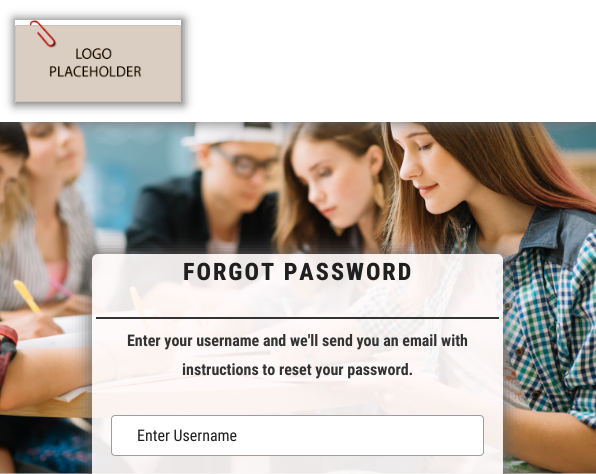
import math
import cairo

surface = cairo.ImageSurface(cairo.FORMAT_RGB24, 596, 474)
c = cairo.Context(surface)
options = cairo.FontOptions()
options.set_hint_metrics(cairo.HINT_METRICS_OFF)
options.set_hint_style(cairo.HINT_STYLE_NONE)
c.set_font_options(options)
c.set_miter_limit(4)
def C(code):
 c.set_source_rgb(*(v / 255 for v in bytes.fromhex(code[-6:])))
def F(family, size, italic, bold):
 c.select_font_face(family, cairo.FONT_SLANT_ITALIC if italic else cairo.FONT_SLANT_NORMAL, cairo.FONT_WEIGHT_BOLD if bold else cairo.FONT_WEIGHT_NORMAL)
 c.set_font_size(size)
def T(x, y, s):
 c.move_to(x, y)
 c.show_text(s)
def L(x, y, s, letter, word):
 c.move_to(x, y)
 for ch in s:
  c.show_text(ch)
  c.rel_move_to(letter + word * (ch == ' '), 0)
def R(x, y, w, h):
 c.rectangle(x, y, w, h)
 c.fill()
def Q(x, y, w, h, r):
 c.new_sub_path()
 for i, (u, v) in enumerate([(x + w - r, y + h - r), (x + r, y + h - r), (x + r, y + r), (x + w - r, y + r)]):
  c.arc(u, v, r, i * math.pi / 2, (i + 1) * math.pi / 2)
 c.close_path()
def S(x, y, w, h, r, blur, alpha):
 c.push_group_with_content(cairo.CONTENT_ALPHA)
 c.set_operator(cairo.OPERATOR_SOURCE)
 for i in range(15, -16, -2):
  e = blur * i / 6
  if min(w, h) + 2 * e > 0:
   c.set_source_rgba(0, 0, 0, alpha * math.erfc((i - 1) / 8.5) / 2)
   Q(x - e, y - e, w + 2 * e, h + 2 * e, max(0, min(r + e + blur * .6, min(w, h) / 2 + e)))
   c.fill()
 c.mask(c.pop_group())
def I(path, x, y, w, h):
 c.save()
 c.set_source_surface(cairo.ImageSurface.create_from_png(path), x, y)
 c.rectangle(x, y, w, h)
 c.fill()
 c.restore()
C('ffffff')
c.paint()
I('1.png',0,122,596,352)
C('696767')
S(0,1,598,124,0,6.5,.7)
C('ffffff')
R(0,0,596,122)
c.save()
c.set_fill_rule(cairo.FILL_RULE_EVEN_ODD)
c.new_path()
c.move_to(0,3)
c.line_to(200,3)
c.line_to(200,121)
c.line_to(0,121)
c.close_path()
c.move_to(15,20)
c.line_to(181,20)
c.line_to(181,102)
c.line_to(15,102)
c.close_path()
c.clip()
C('757575')
S(14,19,170,86,0,5,1)
c.restore()
I('2.png',15,20,166,82)
c.save()
c.set_fill_rule(cairo.FILL_RULE_EVEN_ODD)
c.new_path()
c.move_to(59,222)
c.line_to(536,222)
c.line_to(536,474)
c.line_to(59,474)
c.close_path()
c.move_to(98,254)
c.line_to(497,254)
c.curve_to(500.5,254,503,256.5,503,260)
c.line_to(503,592)
c.curve_to(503,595.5,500.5,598,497,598)
c.line_to(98,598)
c.curve_to(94.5,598,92,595.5,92,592)
c.line_to(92,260)
c.curve_to(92,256.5,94.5,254,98,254)
c.close_path()
c.clip()
C('656363')
S(90,253,415,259,8,10,1)
c.restore()
c.set_source_rgba(1,0.984,0.984,0.92)
Q(92,254,411,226,6)
c.fill()
F('Roboto Condensed ExtraBold',24,0,0)
C('1f1f1f')
L(183,280,'FORGOT PASSWORD',2,0)
C('333333')
R(96,317,403,2)
F('Roboto Condensed',16,0,1)
T(127,346,'Enter your username and we\'ll send you an email with')
T(182,375,'instructions to reset your password.')
C('ffffff')
Q(111.5,415.5,372,40,3.5)
c.fill_preserve()
C('9d9d9d')
c.set_line_width(1)
c.stroke()
F('Roboto Condensed',16,0,0)
C('1f1f1f')
T(137,441,'Enter Username')
surface.write_to_png('o.png')
